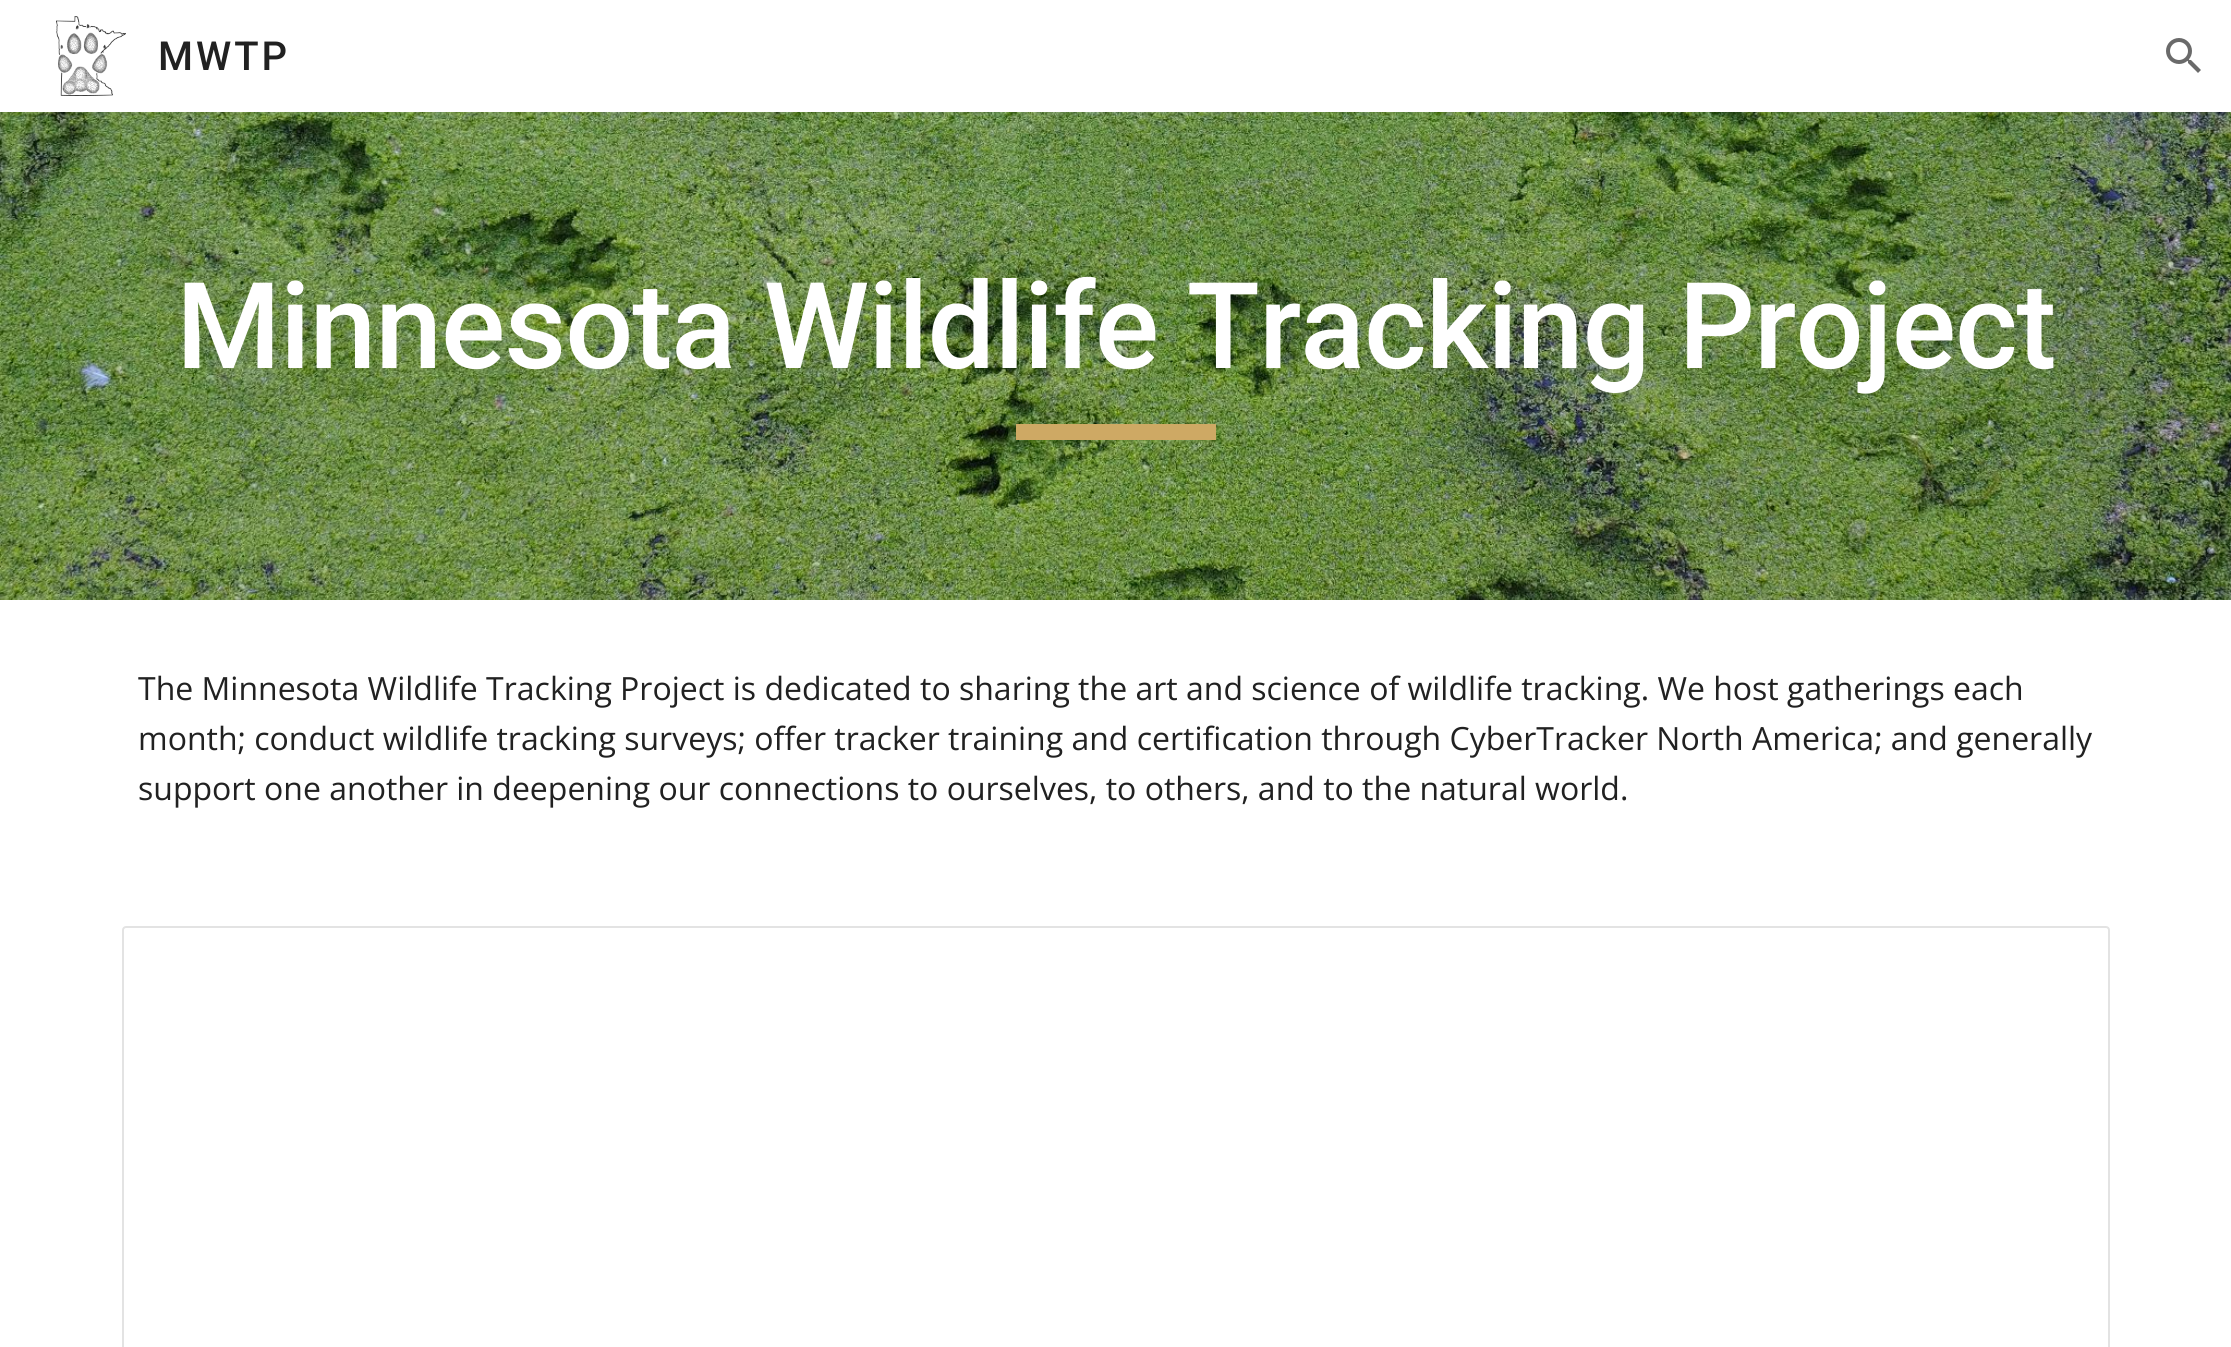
import math
import cairo

surface = cairo.ImageSurface(cairo.FORMAT_RGB24, 2231, 1347)
c = cairo.Context(surface)
options = cairo.FontOptions()
options.set_hint_metrics(cairo.HINT_METRICS_OFF)
options.set_hint_style(cairo.HINT_STYLE_NONE)
c.set_font_options(options)
c.set_miter_limit(4)
def C(code):
 c.set_source_rgb(*(v / 255 for v in bytes.fromhex(code[-6:])))
def F(family, size, italic, bold):
 c.select_font_face(family, cairo.FONT_SLANT_ITALIC if italic else cairo.FONT_SLANT_NORMAL, cairo.FONT_WEIGHT_BOLD if bold else cairo.FONT_WEIGHT_NORMAL)
 c.set_font_size(size)
def T(x, y, s):
 c.move_to(x, y)
 c.show_text(s)
def L(x, y, s, letter, word):
 c.move_to(x, y)
 for ch in s:
  c.show_text(ch)
  c.rel_move_to(letter + word * (ch == ' '), 0)
def R(x, y, w, h):
 c.rectangle(x, y, w, h)
 c.fill()
def Q(x, y, w, h, r):
 c.new_sub_path()
 for i, (u, v) in enumerate([(x + w - r, y + h - r), (x + r, y + h - r), (x + r, y + r), (x + w - r, y + r)]):
  c.arc(u, v, r, i * math.pi / 2, (i + 1) * math.pi / 2)
 c.close_path()
def I(path, x, y, w, h):
 c.save()
 c.set_source_surface(cairo.ImageSurface.create_from_png(path), x, y)
 c.rectangle(x, y, w, h)
 c.fill()
 c.restore()
C('ffffff')
c.paint()
I('1.png',56,16,70,80)
F('Roboto Medium',40,0,0)
C('212121')
L(158,70,'MWTP',3,0)
I('2.png',2166,38,35,35)
I('3.png',0,112,2231,488)
F('Roboto Medium',120,0,0)
C('ffffff')
L(176,368,'Minnesota Wildlife Tracking Project',-1,0)
C('cea964')
R(1016,424,200,16)
F('Open Sans',32,0,0)
C('212121')
T(138,700,'The Minnesota Wildlife Tracking Project is dedicated to sharing the art and science of wildlife tracking. We host gatherings each')
T(138,750,'month; conduct wildlife tracking surveys; offer tracker training and certification through CyberTracker North America; and generally')
T(138,800,'support one another in deepening our connections to ourselves, to others, and to the natural world.')
Q(123,927,1986,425,3)
C('e3e3e3')
c.stroke()
surface.write_to_png('o.png')
